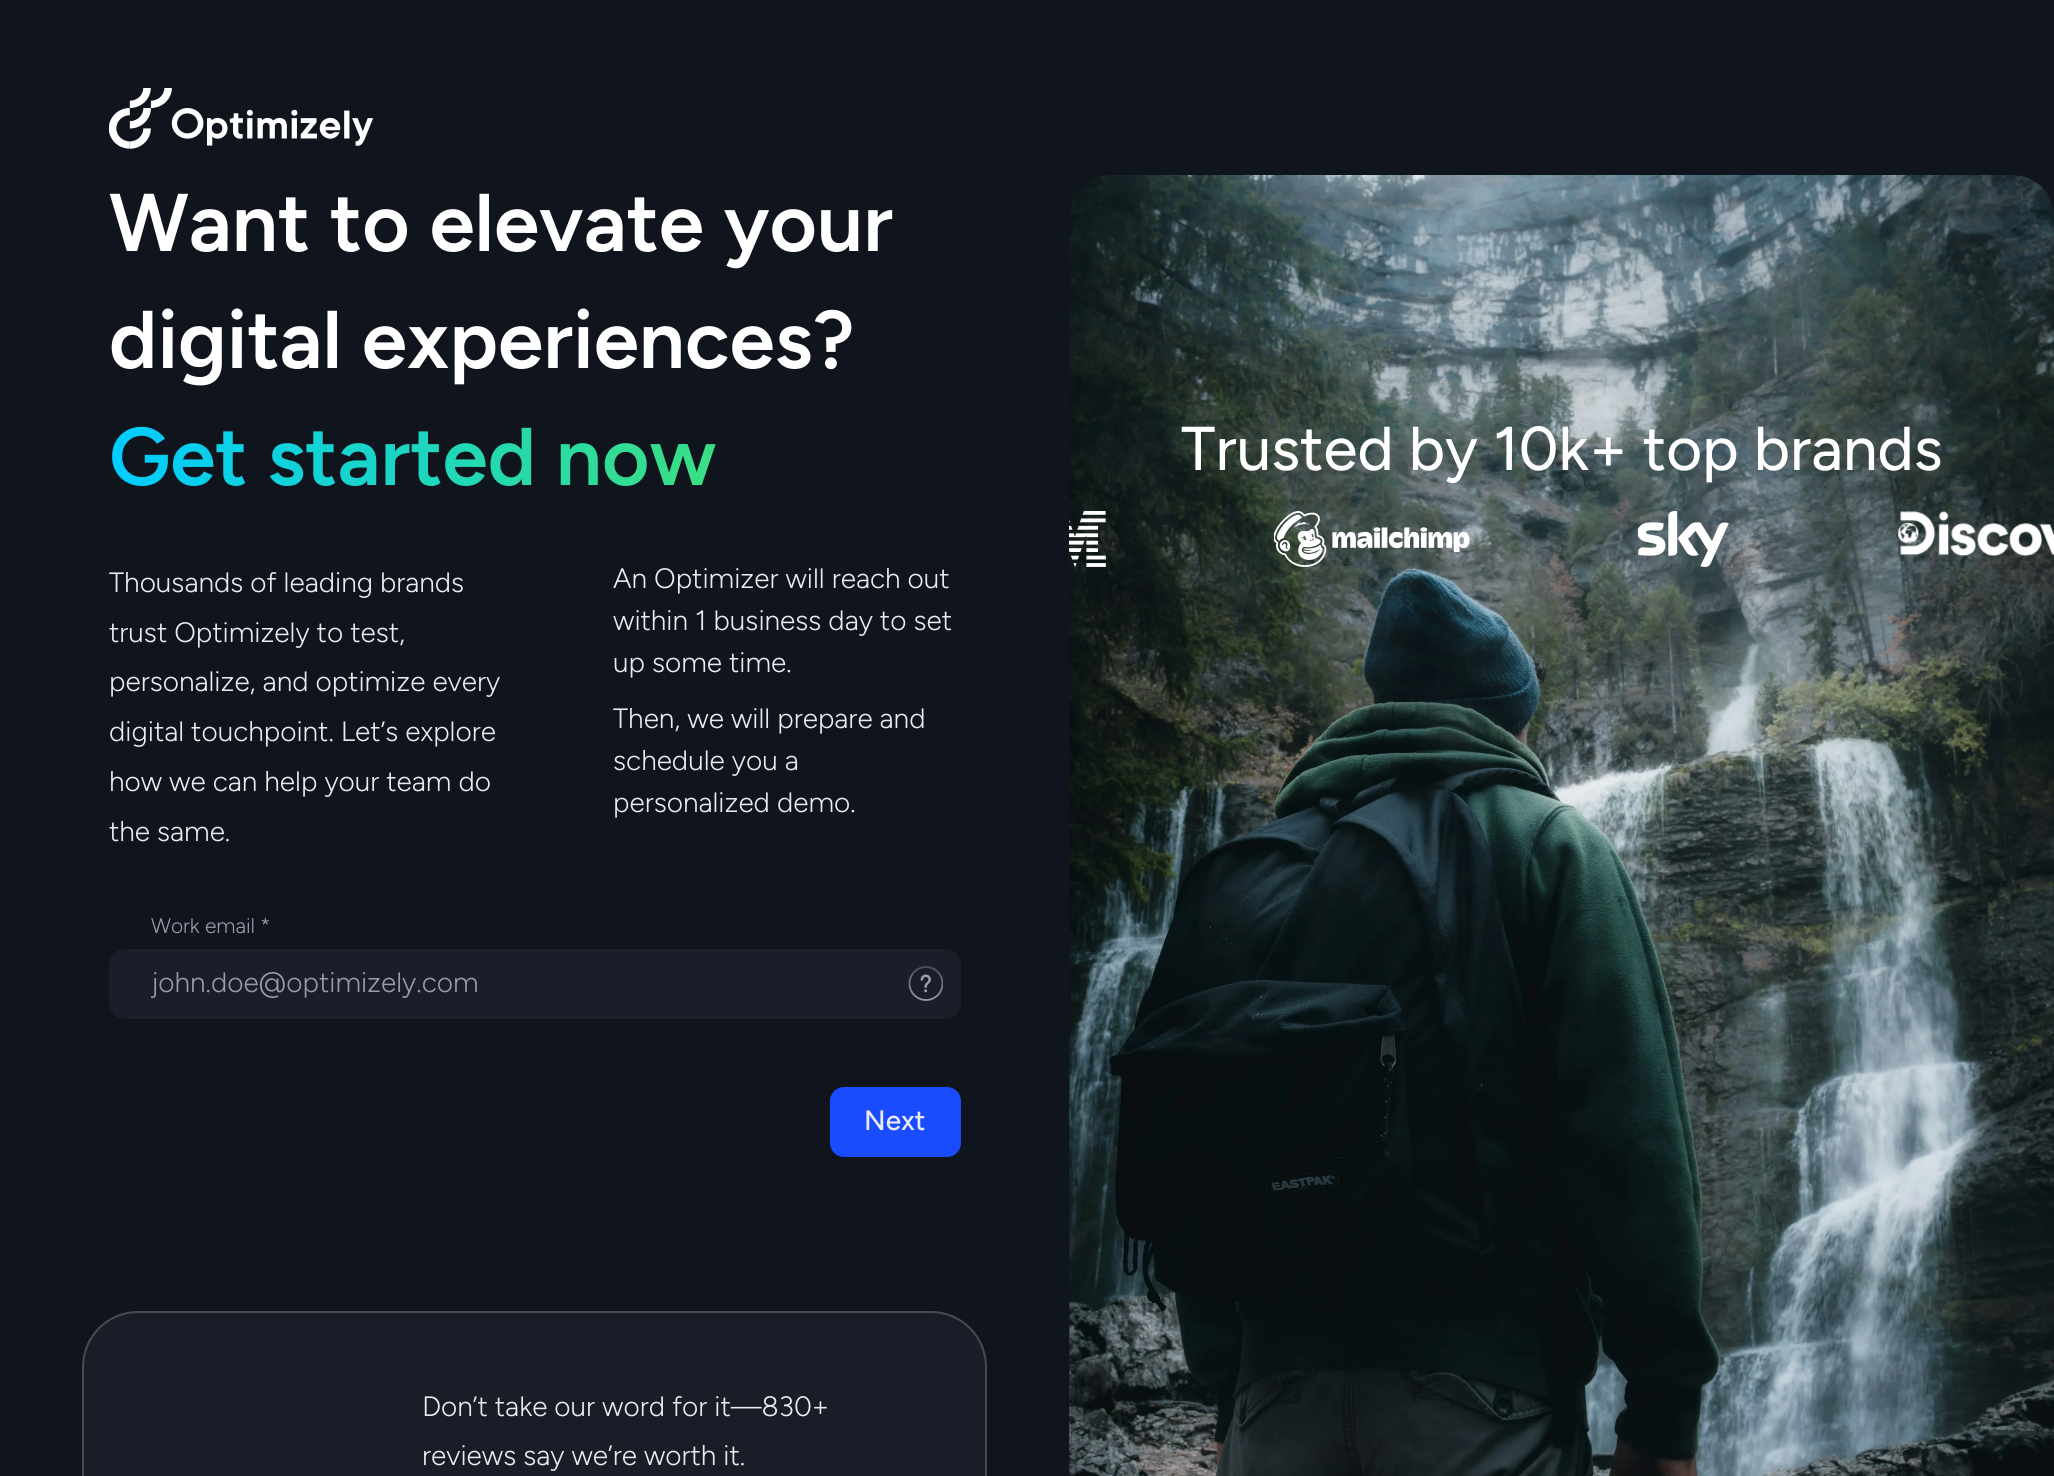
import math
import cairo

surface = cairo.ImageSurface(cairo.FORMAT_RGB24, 2054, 1476)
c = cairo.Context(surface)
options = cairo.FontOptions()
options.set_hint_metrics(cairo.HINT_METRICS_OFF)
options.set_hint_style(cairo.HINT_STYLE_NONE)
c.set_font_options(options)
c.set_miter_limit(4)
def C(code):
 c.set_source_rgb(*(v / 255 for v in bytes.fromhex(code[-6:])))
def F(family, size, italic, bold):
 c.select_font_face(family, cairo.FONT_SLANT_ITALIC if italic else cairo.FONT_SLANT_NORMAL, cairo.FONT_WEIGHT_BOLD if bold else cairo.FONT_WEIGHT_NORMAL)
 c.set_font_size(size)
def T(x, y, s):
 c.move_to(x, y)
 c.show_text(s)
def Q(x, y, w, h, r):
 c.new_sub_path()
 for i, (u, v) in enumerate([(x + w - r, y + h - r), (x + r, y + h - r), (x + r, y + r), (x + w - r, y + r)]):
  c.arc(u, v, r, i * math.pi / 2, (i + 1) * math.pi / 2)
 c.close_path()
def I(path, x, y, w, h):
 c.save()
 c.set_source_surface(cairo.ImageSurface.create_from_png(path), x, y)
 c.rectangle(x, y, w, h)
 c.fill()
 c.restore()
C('10141d')
c.paint()
I('1.png',109,88,264,61)
F('Figtree SemiBold',81.75,0,0)
C('ffffff')
T(109,251,'Want to elevate your')
T(109,368,'digital experiences?')
gradient = cairo.RadialGradient(0,0,0,0,0,1)
gradient.set_matrix(cairo.Matrix(1 / 607, 0, 0, 1 / 726, -1 * 716 / 607, -1 * 485 / 726))
gradient.add_color_stop_rgba(0,0.231,0.878,0.506,1)
gradient.add_color_stop_rgba(1,0,0.8,1,1)
c.set_source(gradient)
T(109,485,'Get started now')
F('Figtree Light',28,0,0)
C('e9ebf1')
T(109,592,'Thousands of leading brands')
T(109,642,'trust Optimizely to test,')
T(109,691,'personalize, and optimize every')
T(109,741,'digital touchpoint. Let’s explore')
T(109,791,'how we can help your team do')
T(109,841,'the same.')
T(613,588,'An Optimizer will reach out')
T(613,630,'within 1 business day to set')
T(613,672,'up some time.')
T(613,728,'Then, we will prepare and')
T(613,770,'schedule you a')
T(613,812,'personalized demo.')
F('Figtree Light',21,0,0)
C('969cac')
T(151,933,'Work email *')
C('191e28')
Q(109,949,852,70,16)
c.fill()
c.save()
c.rectangle(151,966,740,33)
c.clip()
F('Figtree Light',28,0,0)
C('969cac')
T(151,992,'john.doe@optimizely.com')
c.restore()
I('2.png',908,966,35,35)
C('194bff')
Q(830,1087,131,70,14)
c.fill()
F('Figtree Medium',28,0,0)
C('e9ebf1')
T(864,1130,'Next')
C('181d27')
Q(82,1311,905,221,56)
c.fill()
Q(83,1312,903,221,55)
c.set_source_rgba(1,1,1,0.2)
c.stroke()
F('Figtree Light',28,0,0)
C('e9ebf1')
T(422,1416,'Don’t take our word for it—830+')
T(422,1465,'reviews say we’re worth it.')
I('3.png',1069,175,985,1301)
F('Figtree',61.8,0,0)
C('ffffff')
T(1181,470,'Trusted by 10k+ top brands')
I('4.png',1069,511,37,56)
I('5.png',1274,511,196,56)
I('6.png',1638,511,91,56)
I('7.png',1898,511,156,46)
surface.write_to_png('o.png')
